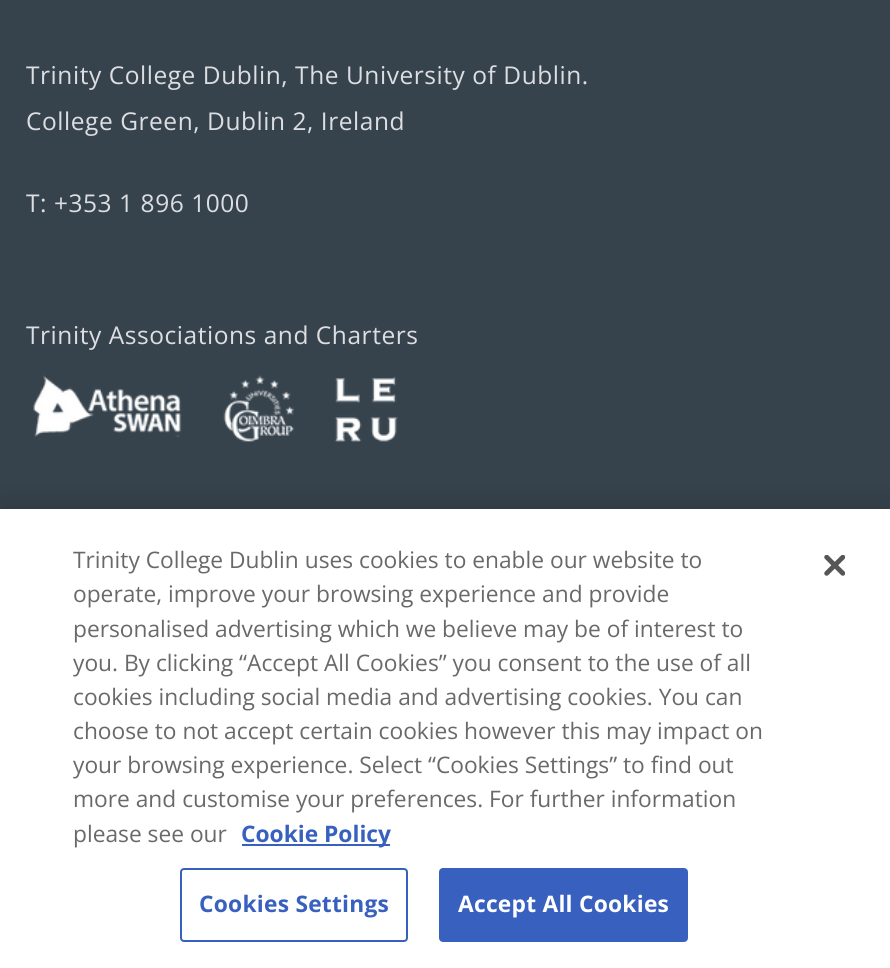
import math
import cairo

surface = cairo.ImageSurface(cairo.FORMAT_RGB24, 890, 968)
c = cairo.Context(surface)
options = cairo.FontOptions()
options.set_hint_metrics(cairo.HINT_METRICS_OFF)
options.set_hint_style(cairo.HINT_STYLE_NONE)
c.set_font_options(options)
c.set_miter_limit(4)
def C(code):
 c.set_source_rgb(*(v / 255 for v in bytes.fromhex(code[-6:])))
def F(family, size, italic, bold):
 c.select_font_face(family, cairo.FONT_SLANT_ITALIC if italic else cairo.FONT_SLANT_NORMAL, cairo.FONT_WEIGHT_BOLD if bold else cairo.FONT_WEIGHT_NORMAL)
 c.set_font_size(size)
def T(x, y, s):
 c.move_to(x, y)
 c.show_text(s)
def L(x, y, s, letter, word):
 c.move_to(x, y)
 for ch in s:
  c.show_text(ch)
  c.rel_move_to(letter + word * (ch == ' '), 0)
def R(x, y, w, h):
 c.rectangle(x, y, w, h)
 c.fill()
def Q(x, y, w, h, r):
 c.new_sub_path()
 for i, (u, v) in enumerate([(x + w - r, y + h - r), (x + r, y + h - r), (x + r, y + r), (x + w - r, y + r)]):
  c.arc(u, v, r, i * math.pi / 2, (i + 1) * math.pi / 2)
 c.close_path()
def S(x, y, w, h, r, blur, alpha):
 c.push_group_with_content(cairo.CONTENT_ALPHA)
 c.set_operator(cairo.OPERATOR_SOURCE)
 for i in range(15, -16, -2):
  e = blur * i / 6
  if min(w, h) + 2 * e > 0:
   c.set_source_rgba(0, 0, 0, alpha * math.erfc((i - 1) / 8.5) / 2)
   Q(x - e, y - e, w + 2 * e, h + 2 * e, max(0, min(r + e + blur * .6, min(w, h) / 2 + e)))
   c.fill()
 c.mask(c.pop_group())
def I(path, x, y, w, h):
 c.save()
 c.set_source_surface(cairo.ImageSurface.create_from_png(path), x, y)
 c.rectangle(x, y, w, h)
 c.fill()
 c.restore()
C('36434d')
c.paint()
F('Open Sans',24.5,0,0)
C('dddee2')
L(26,84,'Trinity College Dublin, The University of Dublin.',.55,0)
L(26,130,'College Green, Dublin 2, Ireland',.55,0)
L(26,212,'T: +353 1 896 1000',.55,0)
L(26,344,'Trinity Associations and Charters',.55,0)
I('1.png',33,375,149,65)
I('2.png',223,375,72,67)
I('3.png',334,376,64,66)
C('000000')
S(0,509,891,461,0,16,.2)
C('ffffff')
R(0,509,890,459)
F('Open Sans',22.75,0,0)
C('696969')
T(73,568,'Trinity College Dublin uses cookies to enable our website to')
T(73,602,'operate, improve your browsing experience and provide')
T(73,637,'personalised advertising which we believe may be of interest to')
T(73,671,'you. By clicking “Accept All Cookies” you consent to the use of all')
T(73,705,'cookies including social media and advertising cookies. You can')
T(73,739,'choose to not accept certain cookies however this may impact on')
T(73,773,'your browsing experience. Select “Cookies Settings” to find out')
T(73,807,'more and customise your preferences. For further information')
T(73,842,'please see our')
C('3860be')
R(242,844,148,2)
F('Open Sans',22.75,0,1)
T(241,842,'Cookie Policy')
Q(181,869,226,72,3)
c.stroke()
L(199,912,'Cookies Settings',.25,0)
Q(440,869,247,72,3)
c.fill_preserve()
c.stroke()
C('ffffff')
L(458,912,'Accept All Cookies',.25,0)
I('4.png',824,555,21,21)
surface.write_to_png('o.png')
